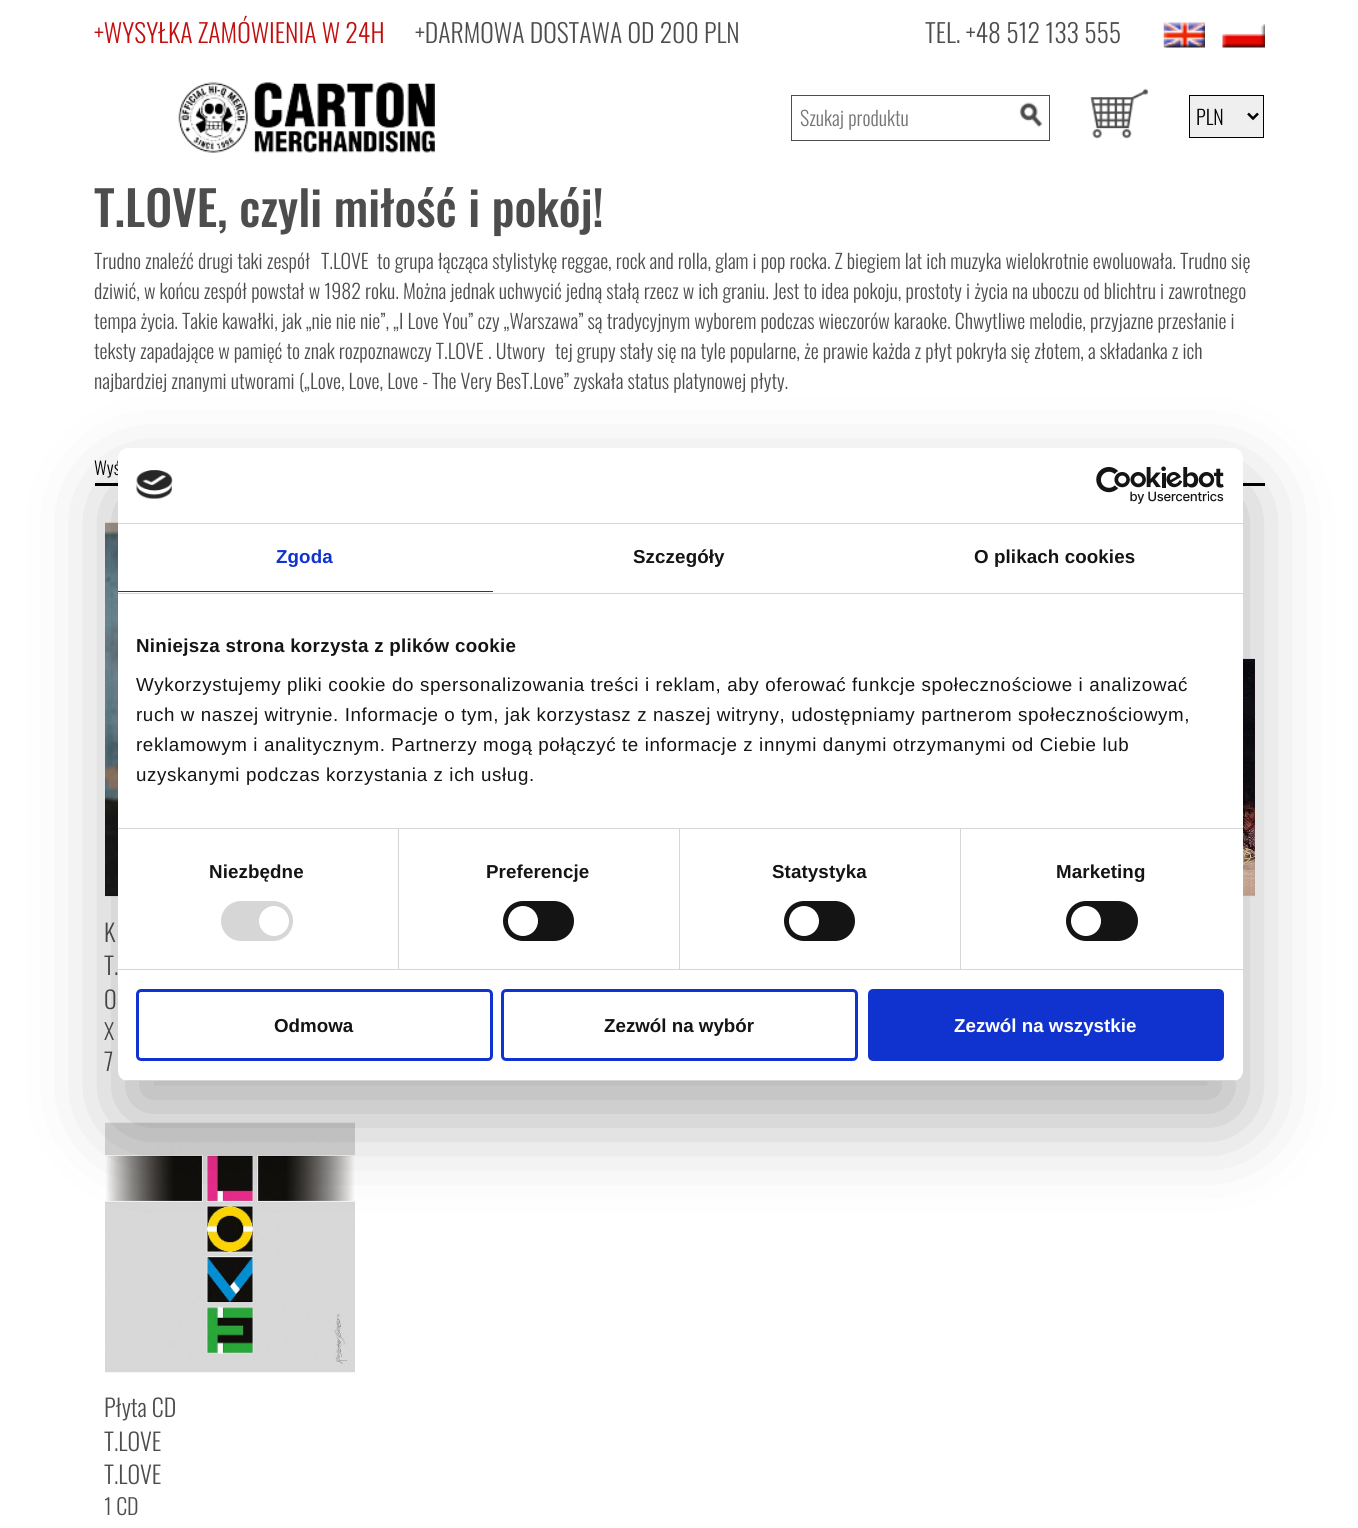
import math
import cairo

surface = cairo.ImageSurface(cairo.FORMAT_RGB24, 1358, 1528)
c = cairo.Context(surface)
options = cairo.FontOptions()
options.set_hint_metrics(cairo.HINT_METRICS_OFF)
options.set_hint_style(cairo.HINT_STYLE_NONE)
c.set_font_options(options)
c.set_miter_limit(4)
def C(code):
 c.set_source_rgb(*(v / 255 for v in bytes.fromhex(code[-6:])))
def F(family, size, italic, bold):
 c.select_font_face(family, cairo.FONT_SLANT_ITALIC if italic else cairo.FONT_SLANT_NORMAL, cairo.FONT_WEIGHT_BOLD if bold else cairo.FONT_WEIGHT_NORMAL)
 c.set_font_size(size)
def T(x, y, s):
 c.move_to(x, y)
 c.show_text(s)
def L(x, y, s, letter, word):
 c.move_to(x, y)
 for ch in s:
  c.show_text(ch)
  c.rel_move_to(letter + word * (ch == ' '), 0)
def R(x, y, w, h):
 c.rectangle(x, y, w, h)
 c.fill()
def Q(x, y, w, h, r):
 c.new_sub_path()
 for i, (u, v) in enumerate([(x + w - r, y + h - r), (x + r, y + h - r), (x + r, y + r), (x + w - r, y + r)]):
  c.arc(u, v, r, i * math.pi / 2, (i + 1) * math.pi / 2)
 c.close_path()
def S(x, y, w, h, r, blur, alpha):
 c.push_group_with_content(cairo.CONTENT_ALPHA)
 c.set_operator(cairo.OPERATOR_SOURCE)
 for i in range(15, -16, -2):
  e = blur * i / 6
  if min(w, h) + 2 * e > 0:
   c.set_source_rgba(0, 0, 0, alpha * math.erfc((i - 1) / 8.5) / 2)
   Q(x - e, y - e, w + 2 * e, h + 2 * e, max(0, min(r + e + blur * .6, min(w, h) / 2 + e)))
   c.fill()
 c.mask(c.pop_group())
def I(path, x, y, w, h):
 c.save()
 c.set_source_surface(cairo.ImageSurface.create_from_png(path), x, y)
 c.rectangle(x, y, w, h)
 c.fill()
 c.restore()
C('ffffff')
c.paint()
F('Oswald Light',25.75,0,0)
C('c20e0e')
T(94,43,'+WYSYŁKA ZAMÓWIENIA W 24H')
C('4d4d4d')
T(415,43,'+DARMOWA DOSTAWA OD 200 PLN')
T(925,43,'TEL. +48 512 133 555')
I('1.png',1163,22,42,26)
I('2.png',1222,23,43,25)
I('3.png',178,82,257,71)
c.rectangle(791.5,95.5,258,45)
c.set_line_width(1)
c.stroke()
F('Oswald Light',20,0,0)
C('757575')
T(800,126,'Szukaj produktu')
I('4.png',1019,102,24,25)
I('5.png',1090,88,59,51)
C('efefef')
c.rectangle(1189.5,95.5,74,42)
c.fill_preserve()
C('000000')
c.stroke()
c.new_path()
c.move_to(1248,113.5)
c.line_to(1253,118.5)
c.line_to(1258,113.5)
c.set_line_width(2.5)
c.stroke()
T(1196,125,'PLN')
F('Oswald Medium',47.9,0,0)
C('4d4d4d')
T(94,227,'T.LOVE, czyli miłość i pokój!')
F('Oswald Light',20,0,0)
T(94,269,'Trudno znaleźć drugi taki zespół')
T(321,269,'T.LOVE')
T(377,269,'to grupa łącząca stylistykę reggae, rock and rolla, glam i pop rocka. Z biegiem lat ich muzyka wielokrotnie ewoluowała. Trudno się')
T(94,299,'dziwić, w końcu zespół powstał w 1982 roku. Można jednak uchwycić jedną stałą rzecz w ich graniu. Jest to idea pokoju, prostoty i życia na uboczu od blichtru i zawrotnego')
T(94,329,'tempa życia. Takie kawałki, jak „nie nie nie”, „I Love You” czy „Warszawa” są tradycyjnym wyborem podczas wieczorów karaoke. Chwytliwe melodie, przyjazne przesłanie i')
T(94,359,'teksty zapadające w pamięć to znak rozpoznawczy T.LOVE')
T(488,359,'. Utwory')
T(555,359,'tej grupy stały się na tyle popularne, że prawie każda z płyt pokryła się złotem, a składanka z ich')
T(94,389,'najbardziej znanymi utworami („Love, Love, Love - The Very BesT.Love” zyskała status platynowej płyty.')
C('000000')
R(95,483,1170,3)
F('Oswald Light',18,0,0)
T(94,475,'Wyś')
I('6.png',1243,658,12,239)
I('7.png',105,522,13,375)
F('Oswald Light',24,0,0)
C('4d4d4d')
T(104,942,'K')
T(104,975,'T.')
T(104,1009,'O')
F('Oswald Light',22,0,0)
T(104,1040,'X')
F('Oswald Light',24,0,0)
T(104,1071,'7')
I('8.png',105,1122,250,251)
T(104,1417,'Płyta CD')
T(104,1451,'T.LOVE')
T(104,1484,'T.LOVE')
F('Oswald Light',22,0,0)
T(104,1515,'1 CD')
C('000000')
S(118,488,1125,633,10,42.5,.3)
C('ffffff')
Q(118,448,1125,633,10)
c.fill()
C('d6d6d6')
R(118,523,1125,1)
I('9.png',135,470,38,29)
I('10.png',1096,466,128,38)
R(118,593,1125,1)
C('1032cf')
R(118,591,375,1)
F('Liberation Sans',18.75,0,1)
L(276,563,'Zgoda',.1,0)
C('141414')
L(633,563,'Szczegóły',.1,0)
L(974,563,'O plikach cookies',.1,0)
C('d6d6d6')
R(118,828,1125,1)
C('141414')
L(136,652,'Niniejsza strona korzysta z plików cookie',.3,0)
F('Liberation Sans',18.75,0,0)
L(136,691,'Wykorzystujemy pliki cookie do spersonalizowania treści i reklam, aby oferować funkcje społecznościowe i analizować',.62,0)
L(136,721,'ruch w naszej witrynie. Informacje o tym, jak korzystasz z naszej witryny, udostępniamy partnerom społecznościowym,',.62,0)
L(136,751,'reklamowym i analitycznym. Partnerzy mogą połączyć te informacje z innymi danymi otrzymanymi od Ciebie lub',.62,0)
L(136,781,'uzyskanymi podczas korzystania z ich usług.',.62,0)
C('d6d6d6')
R(118,969,1125,1)
R(398,829,1,140)
F('Liberation Sans',18.75,0,1)
C('141414')
L(209,878,'Niezbędne',.1,0)
C('d6d6d6')
Q(221,901,72,40,20)
c.fill()
C('ffffff')
c.arc(274,921,15,0,2 * math.pi)
c.fill()
C('d6d6d6')
R(679,829,1,140)
C('141414')
L(486,878,'Preferencje',.1,0)
Q(503,901,71,40,20)
c.fill()
C('ffffff')
c.arc(523,921,15,0,2 * math.pi)
c.fill()
C('d6d6d6')
R(960,829,1,140)
C('141414')
L(772,878,'Statystyka',.1,0)
Q(784,901,71,40,20)
c.fill()
C('ffffff')
c.arc(804,921,15,0,2 * math.pi)
c.fill()
C('141414')
L(1056,878,'Marketing',.1,0)
Q(1066,901,72,40,20)
c.fill()
C('ffffff')
c.arc(1086,921,15,0,2 * math.pi)
c.fill()
c.save()
Q(118,448,1125,633,10)
c.clip()
C('d6d6d6')
R(118,1080,1125,1)
c.restore()
Q(137.5,990.5,354,69,3.5)
C('1032cf')
c.set_line_width(3)
c.stroke()
C('141414')
T(274,1032,'Odmowa')
Q(502.5,990.5,354,69,3.5)
C('1032cf')
c.stroke()
C('141414')
T(604,1032,'Zezwól na wybór')
C('1032cf')
Q(869.5,990.5,353,69,3.5)
c.fill_preserve()
c.stroke()
C('ffffff')
T(954,1032,'Zezwól na wszystkie')
surface.write_to_png('o.png')
